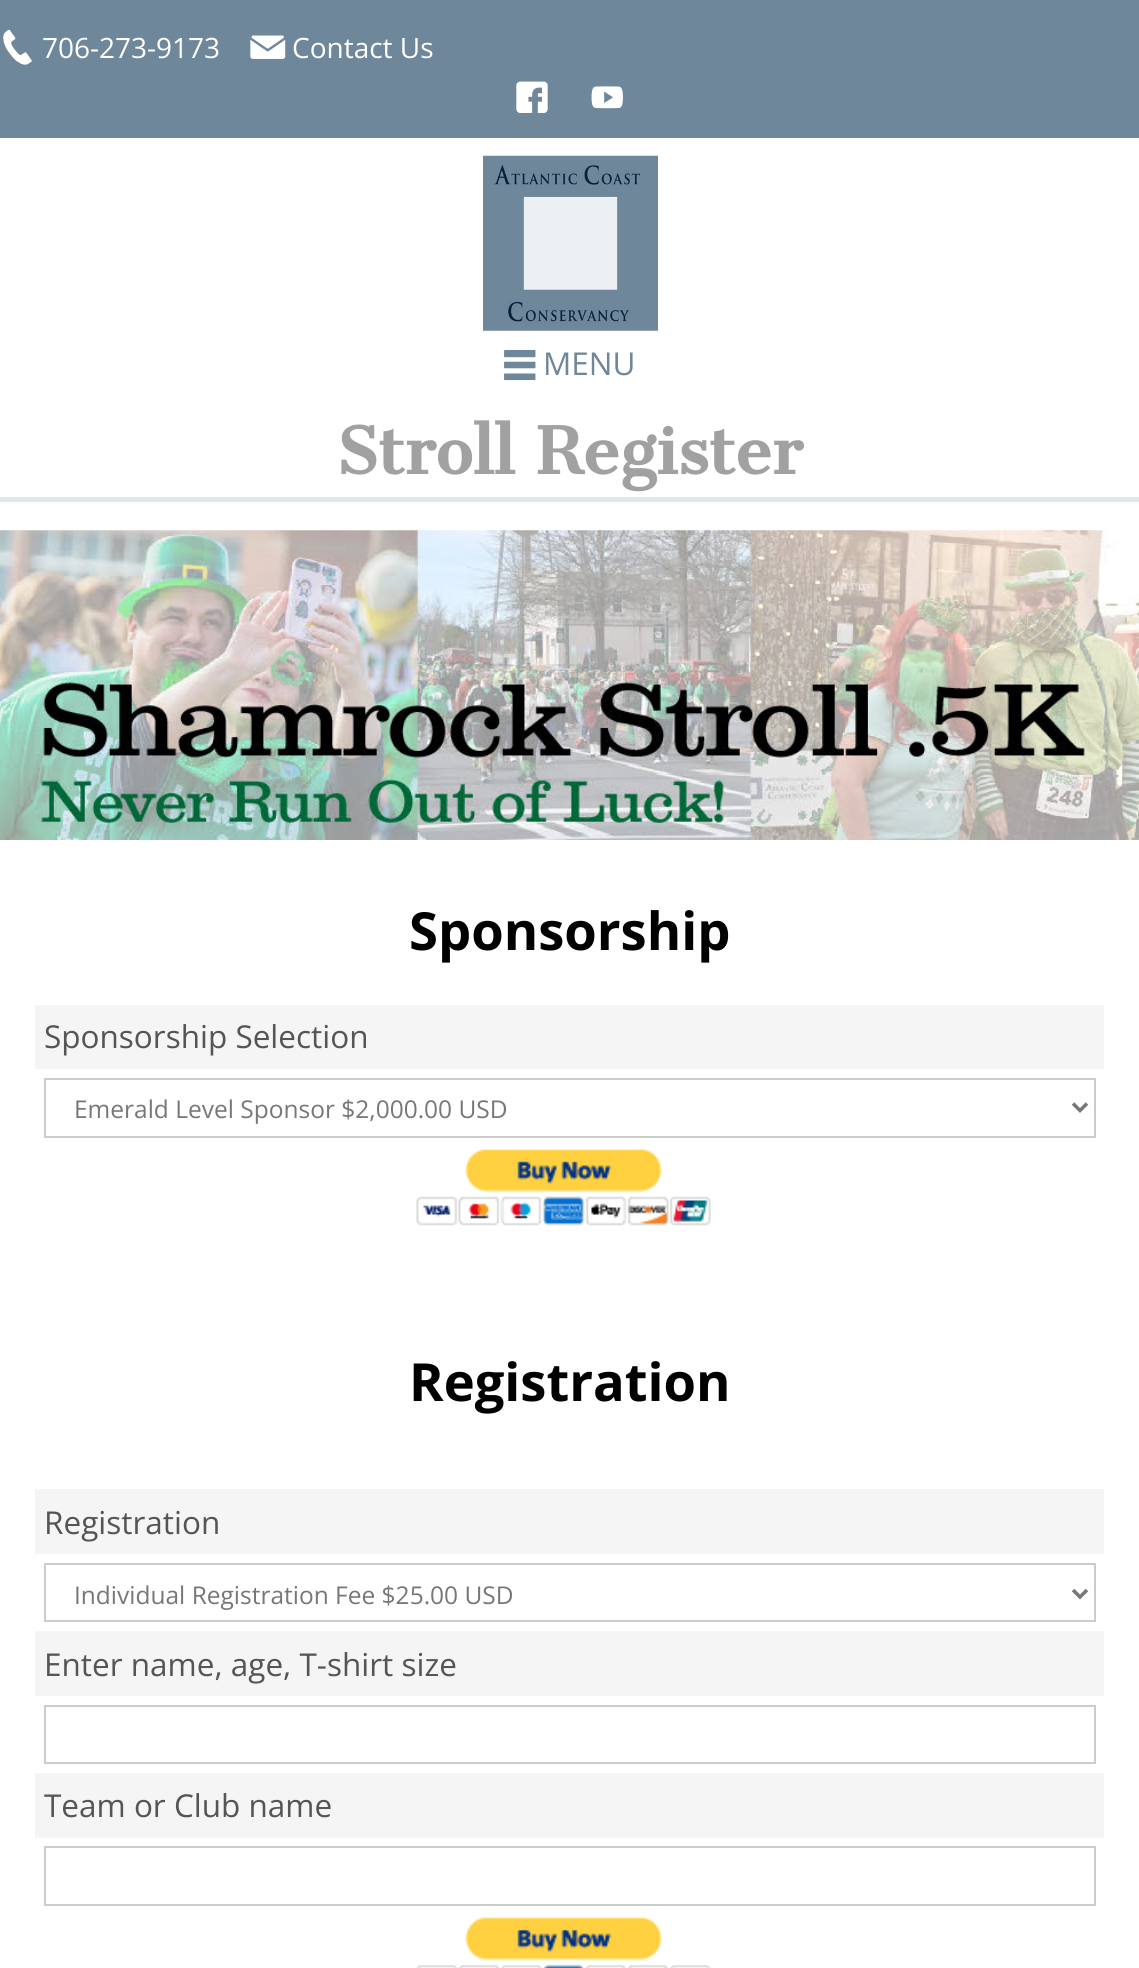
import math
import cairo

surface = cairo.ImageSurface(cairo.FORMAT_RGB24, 1139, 1968)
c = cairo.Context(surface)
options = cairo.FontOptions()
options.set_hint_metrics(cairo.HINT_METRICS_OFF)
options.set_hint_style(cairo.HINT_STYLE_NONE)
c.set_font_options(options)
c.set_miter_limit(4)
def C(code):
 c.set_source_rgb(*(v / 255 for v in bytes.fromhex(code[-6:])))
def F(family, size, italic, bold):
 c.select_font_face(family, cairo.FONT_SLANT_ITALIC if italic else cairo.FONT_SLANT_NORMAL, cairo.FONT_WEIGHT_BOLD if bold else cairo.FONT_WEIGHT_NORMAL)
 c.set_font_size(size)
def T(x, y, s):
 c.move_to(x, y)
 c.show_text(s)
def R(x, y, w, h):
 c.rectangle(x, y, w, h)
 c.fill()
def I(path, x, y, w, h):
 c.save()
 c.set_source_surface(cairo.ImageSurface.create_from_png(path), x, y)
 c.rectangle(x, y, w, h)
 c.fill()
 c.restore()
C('ffffff')
c.paint()
C('6e879b')
R(0,0,1139,138)
I('1.png',3,29,29,36)
F('Open Sans',28,0,0)
C('ffffff')
T(42,58,'706-273-9173')
I('2.png',250,35,36,24)
T(292,58,'Contact Us')
I('3.png',516,81,32,32)
I('4.png',591,86,32,23)
I('5.png',483,155,175,176)
I('6.png',504,350,32,31)
F('Open Sans',31.5,0,0)
C('6e879b')
T(543,375,'MENU')
C('e2e7eb')
R(0,497,1139,5)
F('Cantata One',63,0,1)
C('a1a1a1')
T(336,474,'Stroll Register')
I('7.png',0,530,1139,310)
F('Open Sans',52.5,0,1)
C('000000')
T(409,950,'Sponsorship')
C('f5f5f5')
R(35,1005,1069,64)
F('Open Sans',31.5,0,0)
C('555555')
T(44,1048,'Sponsorship Selection')
c.rectangle(45,1079,1050,58)
C('cccccc')
c.stroke()
c.new_path()
c.move_to(1073,1103.5)
c.line_to(1080,1110.5)
c.line_to(1087,1103.5)
C('777777')
c.set_line_width(3.5)
c.stroke()
F('Open Sans',24.5,0,0)
T(74,1118,'Emerald Level Sponsor $2,000.00 USD')
I('8.png',416,1149,295,77)
F('Open Sans',52.5,0,1)
C('000000')
T(409,1401,'Registration')
C('f5f5f5')
R(35,1489,1069,65)
F('Open Sans',31.5,0,0)
C('555555')
T(44,1534,'Registration')
c.rectangle(45,1564,1050,57)
C('cccccc')
c.set_line_width(2)
c.stroke()
c.new_path()
c.move_to(1073,1590)
c.line_to(1080,1597)
c.line_to(1087,1590)
C('777777')
c.set_line_width(3.5)
c.stroke()
F('Open Sans',24.5,0,0)
T(74,1604,'Individual Registration Fee $25.00 USD')
C('f5f5f5')
R(35,1631,1069,65)
F('Open Sans',31.5,0,0)
C('555555')
T(44,1676,'Enter name, age, T-shirt size')
c.rectangle(45,1706,1050,57)
C('cccccc')
c.set_line_width(2)
c.stroke()
C('f5f5f5')
R(35,1773,1069,65)
C('555555')
T(44,1817,'Team or Club name')
c.rectangle(45,1847,1050,58)
C('cccccc')
c.stroke()
I('9.png',416,1917,295,51)
surface.write_to_png('o.png')
